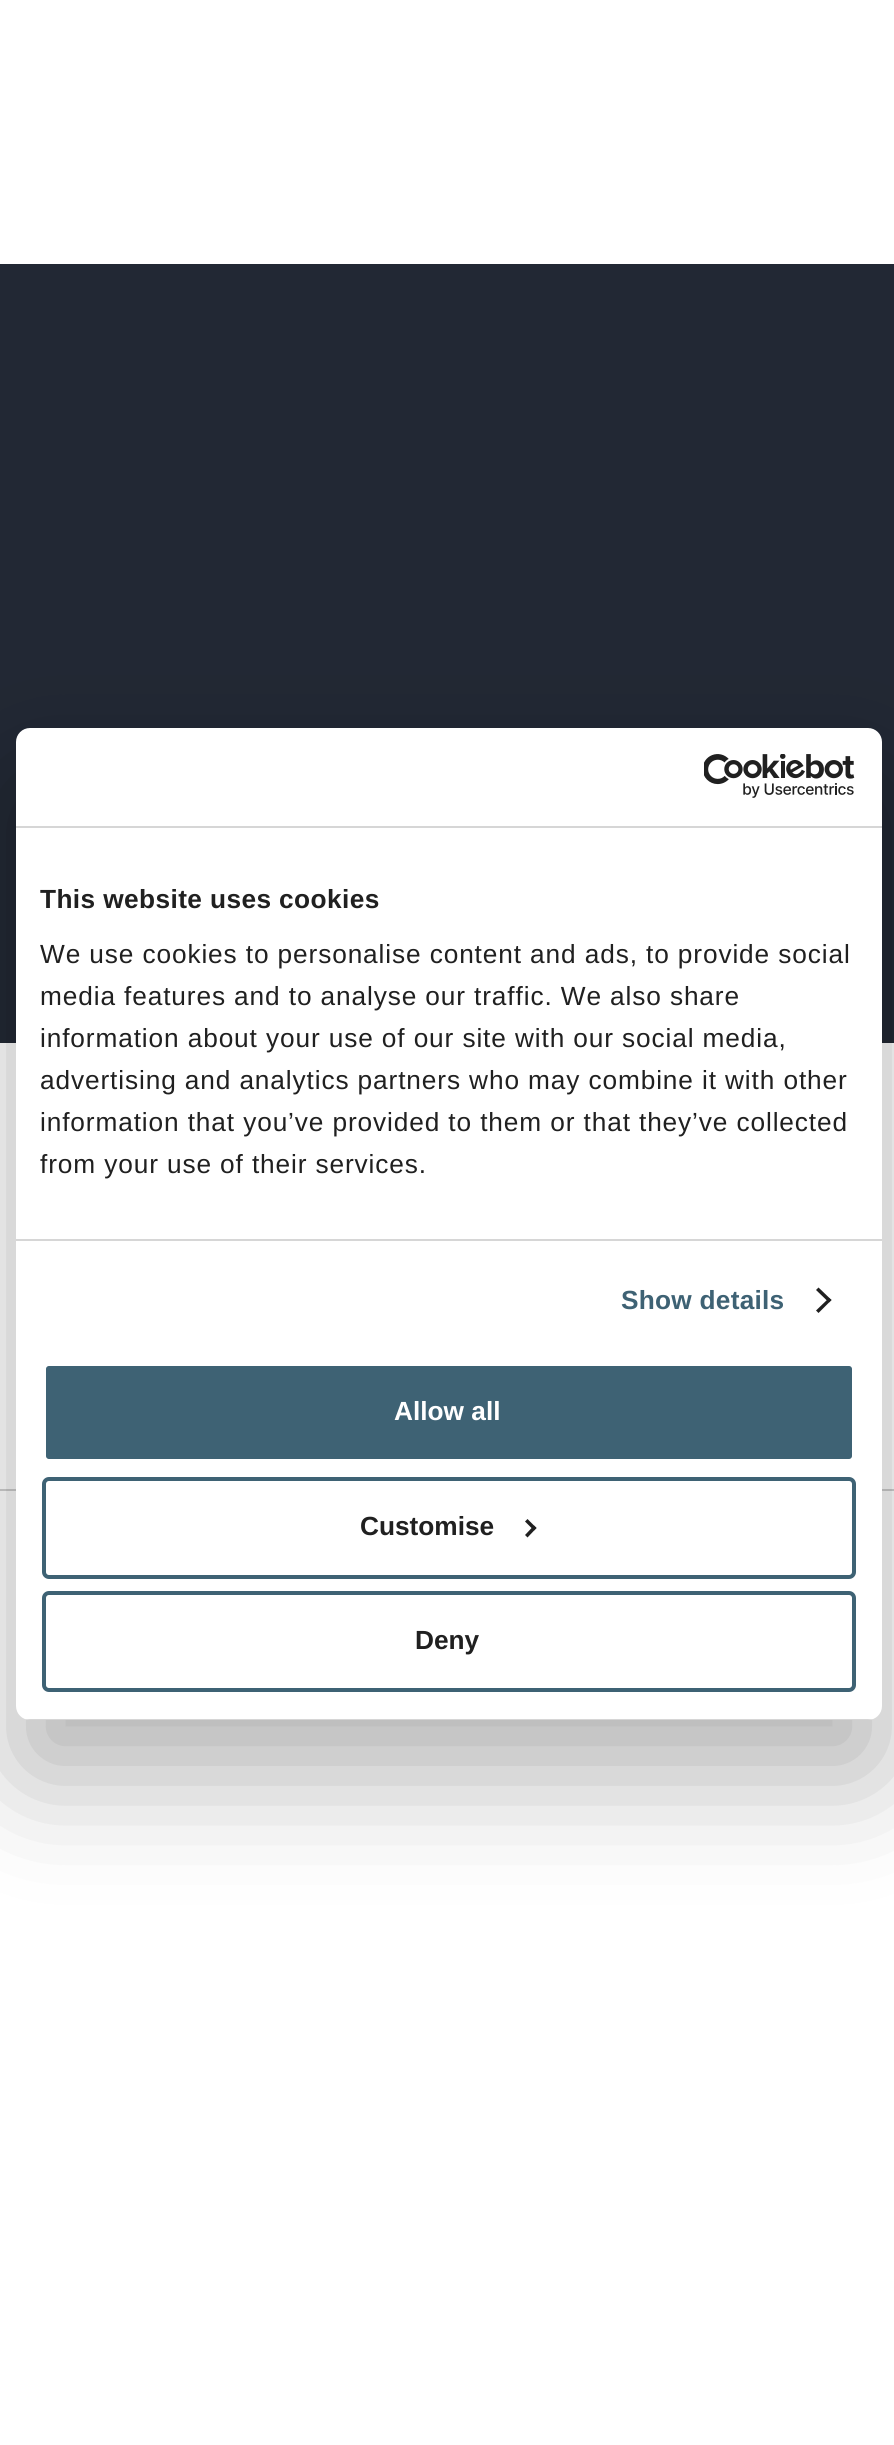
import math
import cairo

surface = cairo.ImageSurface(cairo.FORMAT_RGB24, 894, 2445)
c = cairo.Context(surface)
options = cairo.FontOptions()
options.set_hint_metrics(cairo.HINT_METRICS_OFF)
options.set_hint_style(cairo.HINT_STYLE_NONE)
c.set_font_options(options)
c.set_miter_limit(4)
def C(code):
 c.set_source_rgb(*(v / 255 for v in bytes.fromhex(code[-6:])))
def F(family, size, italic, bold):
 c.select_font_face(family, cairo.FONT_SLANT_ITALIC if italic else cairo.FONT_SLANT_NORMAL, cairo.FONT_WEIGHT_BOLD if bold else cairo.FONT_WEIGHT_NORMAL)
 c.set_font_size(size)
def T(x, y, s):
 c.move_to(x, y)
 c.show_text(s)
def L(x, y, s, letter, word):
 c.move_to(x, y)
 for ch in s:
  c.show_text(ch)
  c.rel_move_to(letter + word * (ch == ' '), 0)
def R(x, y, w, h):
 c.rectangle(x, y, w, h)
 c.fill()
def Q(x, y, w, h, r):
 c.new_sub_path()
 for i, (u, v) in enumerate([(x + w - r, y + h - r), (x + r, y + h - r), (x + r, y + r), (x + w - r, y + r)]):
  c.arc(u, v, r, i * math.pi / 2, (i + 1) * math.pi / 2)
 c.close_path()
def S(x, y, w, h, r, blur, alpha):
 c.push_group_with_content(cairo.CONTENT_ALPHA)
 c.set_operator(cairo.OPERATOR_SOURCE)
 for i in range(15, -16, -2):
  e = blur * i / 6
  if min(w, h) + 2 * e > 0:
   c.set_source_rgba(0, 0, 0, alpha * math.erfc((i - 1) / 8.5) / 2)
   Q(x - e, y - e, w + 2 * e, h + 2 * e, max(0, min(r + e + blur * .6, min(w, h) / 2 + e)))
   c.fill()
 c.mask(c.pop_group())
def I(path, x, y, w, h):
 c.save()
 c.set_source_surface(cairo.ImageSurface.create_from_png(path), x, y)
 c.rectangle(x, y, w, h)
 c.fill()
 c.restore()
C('ffffff')
c.paint()
C('222834')
R(0,264,894,779)
C('cfcfcf')
R(0,1489,894,2)
C('000000')
S(16,784,866,992,14,59.5,.3)
C('ffffff')
Q(16,728,866,992,14)
c.fill()
C('d6d6d6')
R(16,826,866,2)
I('1.png',704,754,151,44)
R(16,1239,866,2)
F('Liberation Sans',26.25,0,1)
C('202020')
L(40,908,'This website uses cookies',.4,0)
F('Liberation Sans',26.25,0,0)
L(40,963,'We use cookies to personalise content and ads, to provide social',.88,0)
L(40,1005,'media features and to analyse our traffic. We also share',.88,0)
L(40,1047,'information about your use of our site with our social media,',.88,0)
L(40,1089,'advertising and analytics partners who may combine it with other',.88,0)
L(40,1131,'information that you’ve provided to them or that they’ve collected',.88,0)
L(40,1173,'from your use of their services.',.88,0)
F('Liberation Sans',26.25,0,1)
C('3e6274')
L(621,1309,'Show details',.25,0)
C('202020')
c.new_path()
c.move_to(818.5,1287.5)
c.line_to(831.5,1300)
c.line_to(829,1302.5)
c.line_to(816,1290)
c.close_path()
c.fill()
c.new_path()
c.move_to(829,1298)
c.line_to(831.5,1300)
c.line_to(818.5,1313)
c.line_to(816,1310.5)
c.close_path()
c.fill()
c.save()
Q(16,728,866,992,14)
c.clip()
C('d6d6d6')
R(25,1719,848,1)
c.restore()
C('3e6274')
Q(44,1364,810,97,5)
c.fill_preserve()
C('ffffff')
c.set_line_width(4)
c.stroke()
T(394,1420,'Allow all')
Q(44,1479,810,98,5)
C('3e6274')
c.stroke()
C('202020')
T(360,1535,'Customise')
c.new_path()
c.move_to(527.5,1519)
c.line_to(536.5,1528)
c.line_to(534,1530.5)
c.line_to(525,1521.5)
c.close_path()
c.fill()
c.new_path()
c.move_to(534,1525.5)
c.line_to(536.5,1528)
c.line_to(527.5,1537.5)
c.line_to(525,1535)
c.close_path()
c.fill()
Q(44,1593,810,97,5)
C('3e6274')
c.stroke()
C('202020')
T(415,1649,'Deny')
surface.write_to_png('o.png')
